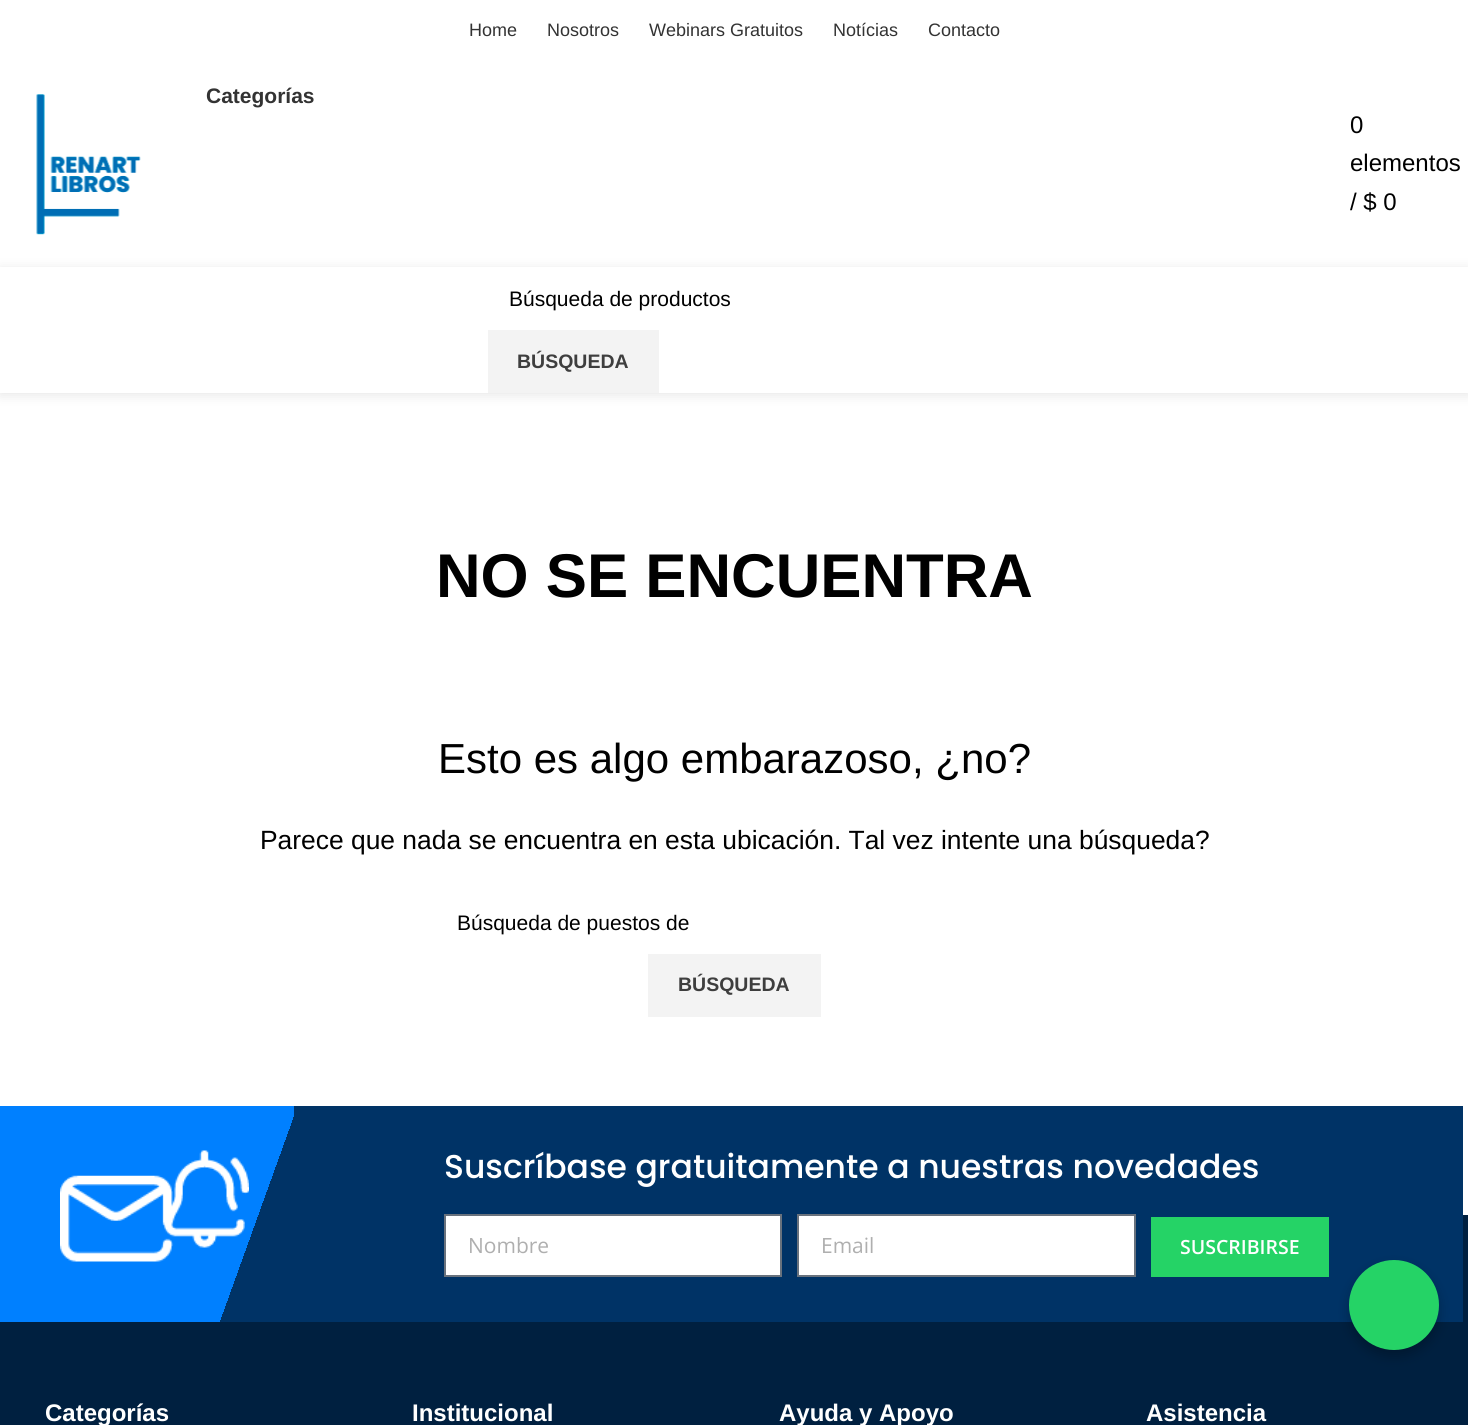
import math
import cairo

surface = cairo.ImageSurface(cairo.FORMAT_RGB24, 1468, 1425)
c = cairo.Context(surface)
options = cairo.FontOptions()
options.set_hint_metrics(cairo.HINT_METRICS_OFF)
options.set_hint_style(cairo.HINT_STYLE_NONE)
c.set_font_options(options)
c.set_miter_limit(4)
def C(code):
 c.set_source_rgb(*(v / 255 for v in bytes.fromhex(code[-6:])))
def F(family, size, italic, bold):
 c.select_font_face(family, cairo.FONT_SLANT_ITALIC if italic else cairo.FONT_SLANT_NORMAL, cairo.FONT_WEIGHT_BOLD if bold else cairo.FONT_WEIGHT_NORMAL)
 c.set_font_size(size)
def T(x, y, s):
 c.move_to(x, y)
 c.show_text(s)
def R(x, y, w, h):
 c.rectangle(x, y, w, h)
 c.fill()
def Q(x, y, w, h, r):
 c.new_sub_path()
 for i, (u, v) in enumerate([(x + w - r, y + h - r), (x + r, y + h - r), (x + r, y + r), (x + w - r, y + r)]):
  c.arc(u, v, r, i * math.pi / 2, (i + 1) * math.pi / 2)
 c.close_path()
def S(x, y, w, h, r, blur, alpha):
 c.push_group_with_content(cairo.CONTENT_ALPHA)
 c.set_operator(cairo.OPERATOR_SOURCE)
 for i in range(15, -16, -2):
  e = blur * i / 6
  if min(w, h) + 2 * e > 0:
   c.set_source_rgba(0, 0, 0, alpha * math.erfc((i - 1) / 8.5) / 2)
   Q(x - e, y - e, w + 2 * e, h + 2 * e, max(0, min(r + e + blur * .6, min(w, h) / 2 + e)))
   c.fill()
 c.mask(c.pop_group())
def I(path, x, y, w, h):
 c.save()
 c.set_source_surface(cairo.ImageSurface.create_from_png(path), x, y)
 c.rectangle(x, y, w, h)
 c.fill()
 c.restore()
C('ffffff')
c.paint()
F('Liberation Sans',18,0,0)
C('333333')
T(469,36,'Home')
T(547,36,'Nosotros')
T(649,36,'Webinars Gratuitos')
T(833,36,'Notícias')
T(928,36,'Contacto')
I('1.png',36,94,105,141)
F('Liberation Sans',21,0,1)
T(206,103,'Categorías')
F('Liberation Sans',24,0,0)
C('000000')
T(1350,133,'0')
T(1350,171,'elementos')
T(1350,210,'/ $ 0')
c.save()
c.set_fill_rule(cairo.FILL_RULE_EVEN_ODD)
c.new_path()
c.move_to(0,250)
c.line_to(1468,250)
c.line_to(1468,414)
c.line_to(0,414)
c.close_path()
c.move_to(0,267)
c.line_to(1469,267)
c.line_to(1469,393)
c.line_to(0,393)
c.close_path()
c.clip()
C('000000')
S(0,269,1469,126,0,6,.1)
c.restore()
F('Liberation Sans',21,0,0)
T(509,306,'Búsqueda de productos')
C('f3f3f3')
R(488,330,171,63)
F('Liberation Sans',19.5,0,1)
C('3e3e3e')
T(517,368,'BÚSQUEDA')
F('Liberation Sans',61.75,0,1)
C('000000')
T(436,597,'NO SE ENCUENTRA')
F('Liberation Sans',42,0,0)
T(438,773,'Esto es algo embarazoso, ¿no?')
F('Liberation Sans',26.4,0,0)
T(260,849,'Parece que nada se encuentra en esta ubicación. Tal vez intente una búsqueda?')
F('Liberation Sans',21,0,0)
T(457,930,'Búsqueda de puestos de')
C('f3f3f3')
R(648,954,173,63)
F('Liberation Sans',19.5,0,1)
C('3e3e3e')
T(678,991,'BÚSQUEDA')
C('002040')
R(0,1215,1468,210)
gradient = cairo.LinearGradient(-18,1154,312,1273)
gradient.add_color_stop_rgba(.8,0,0.502,1,1)
gradient.add_color_stop_rgba(.8,0,0.2,0.4,1)
c.set_source(gradient)
R(0,1106,294,216)
I('2.png',60,1150,189,112)
C('003366')
R(294,1106,1169,216)
F('Poppins Medium',33,0,0)
C('ffffff')
T(444,1178,'Suscríbase gratuitamente a nuestras novedades')
c.rectangle(445,1215,336,61)
c.fill_preserve()
C('69727d')
c.stroke()
F('Open Sans',21,0,0)
C('afafaf')
T(468,1253,'Nombre')
C('ffffff')
c.rectangle(798,1215,337,61)
c.fill_preserve()
C('69727d')
c.stroke()
C('afafaf')
T(821,1253,'Email')
C('25d366')
R(1151,1217,178,60)
F('Open Sans SemiBold',19.5,0,0)
C('ffffff')
T(1180,1254,'SUSCRIBIRSE')
F('Liberation Sans',24,0,1)
T(45,1421,'Categorías')
T(412,1421,'Institucional')
T(779,1421,'Ayuda y Apoyo')
T(1146,1421,'Asistencia')
C('000000')
S(1349,1266,90,90,45,6,.25)
C('25d366')
c.arc(1394,1305,45,0,2 * math.pi)
c.fill()
surface.write_to_png('o.png')
